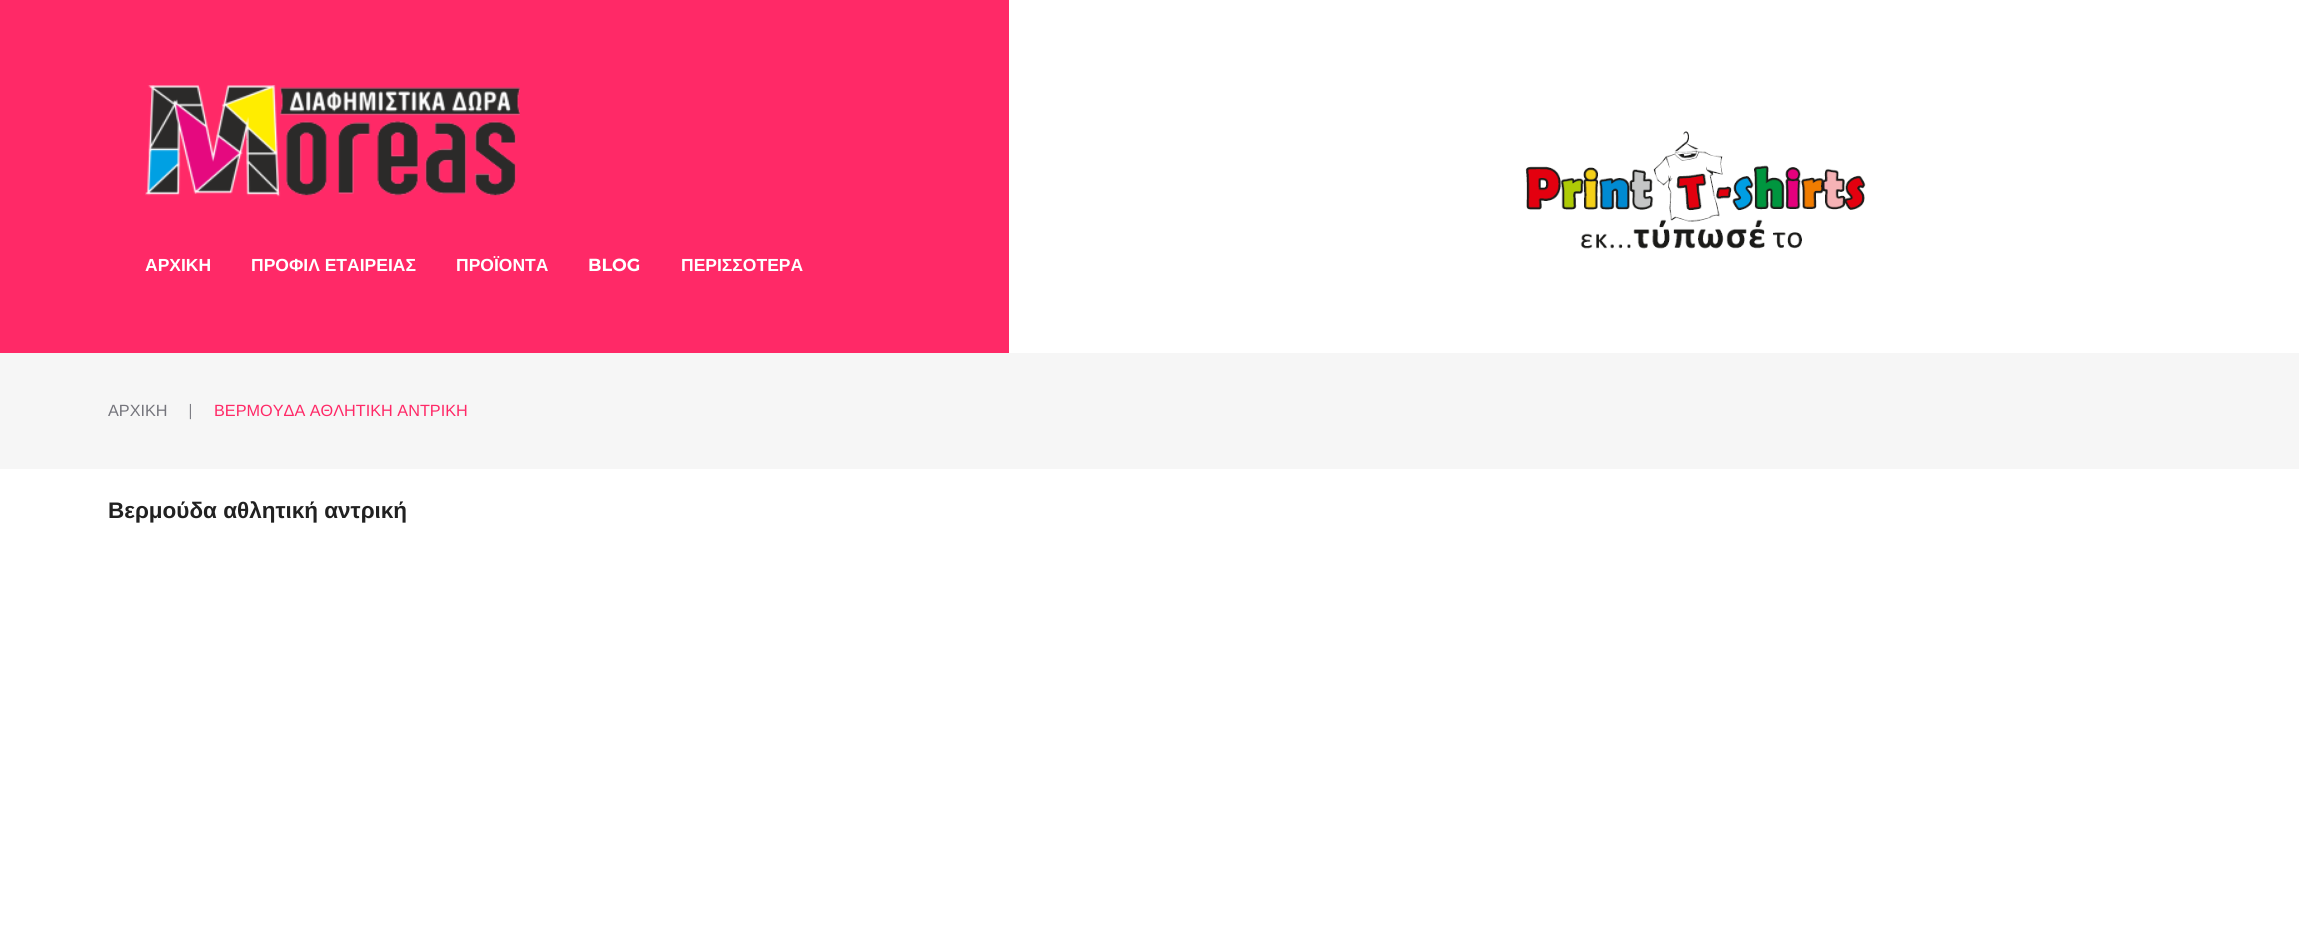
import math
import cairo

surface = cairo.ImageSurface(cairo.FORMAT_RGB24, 2299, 926)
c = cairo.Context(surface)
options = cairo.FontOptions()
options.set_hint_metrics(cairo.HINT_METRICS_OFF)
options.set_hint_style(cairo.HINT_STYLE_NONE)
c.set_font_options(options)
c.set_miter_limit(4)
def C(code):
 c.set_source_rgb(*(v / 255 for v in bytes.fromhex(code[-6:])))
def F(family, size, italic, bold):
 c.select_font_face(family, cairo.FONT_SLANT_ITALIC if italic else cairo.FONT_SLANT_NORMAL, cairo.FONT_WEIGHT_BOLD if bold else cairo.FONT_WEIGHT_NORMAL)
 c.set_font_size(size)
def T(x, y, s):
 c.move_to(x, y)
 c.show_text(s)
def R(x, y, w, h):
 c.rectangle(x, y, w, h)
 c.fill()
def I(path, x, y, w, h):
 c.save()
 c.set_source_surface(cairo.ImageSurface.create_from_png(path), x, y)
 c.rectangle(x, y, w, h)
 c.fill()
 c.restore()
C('ffffff')
c.paint()
I('1.png',1525,131,341,118)
C('ff2967')
R(0,0,1009,353)
I('2.png',145,85,375,112)
F('Liberation Sans',17.5,0,1)
C('ffffff')
T(145,271,'ΑΡΧΙΚΗ')
T(251,271,'ΠΡΟΦΙΛ ΕΤΑΙΡΕΙΑΣ')
T(456,271,'ΠΡΟΪΟΝΤΑ')
F('Montserrat',17.5,0,1)
T(588,271,'BLOG')
F('Liberation Sans',17.5,0,1)
T(681,271,'ΠΕΡΙΣΣΟΤΕΡΑ')
C('f6f6f6')
R(0,353,2299,116)
F('Liberation Sans',16.25,0,0)
C('75757c')
T(108,416,'ΑΡΧΙΚΗ')
F('Montserrat',16.25,0,0)
T(188,416,'|')
F('Liberation Sans',16.25,0,0)
C('ff2967')
T(214,416,'ΒΕΡΜΟΥΔΑ ΑΘΛΗΤΙΚΗ ΑΝΤΡΙΚΗ')
F('Liberation Sans',22.5,0,1)
C('212121')
T(108,518,'Βερμούδα αθλητική αντρική')
surface.write_to_png('o.png')
